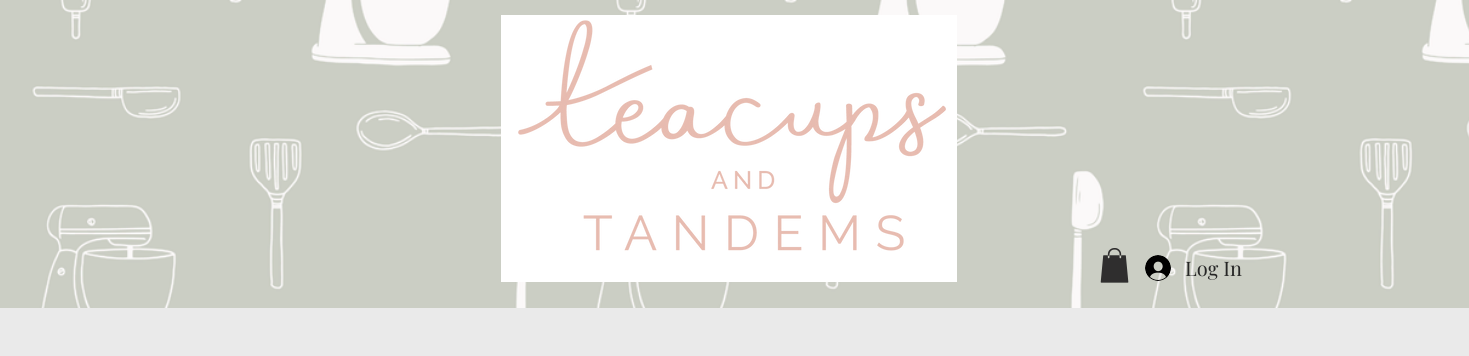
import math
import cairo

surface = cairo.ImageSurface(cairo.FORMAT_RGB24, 1469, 356)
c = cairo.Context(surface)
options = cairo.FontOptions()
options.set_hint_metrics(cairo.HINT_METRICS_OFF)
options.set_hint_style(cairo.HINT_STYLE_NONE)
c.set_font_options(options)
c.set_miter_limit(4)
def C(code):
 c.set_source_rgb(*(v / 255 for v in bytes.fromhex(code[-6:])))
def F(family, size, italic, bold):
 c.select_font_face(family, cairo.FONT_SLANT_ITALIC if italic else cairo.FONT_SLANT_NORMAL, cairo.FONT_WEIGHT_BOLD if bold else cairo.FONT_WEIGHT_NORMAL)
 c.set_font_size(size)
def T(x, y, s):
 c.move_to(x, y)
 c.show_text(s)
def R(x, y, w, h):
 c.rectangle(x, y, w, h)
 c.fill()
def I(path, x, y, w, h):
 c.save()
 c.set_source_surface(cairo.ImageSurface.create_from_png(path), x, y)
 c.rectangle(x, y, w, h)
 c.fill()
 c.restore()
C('eaeaea')
c.paint()
I('1.png',0,0,1469,308)
C('ffffff')
R(501,15,456,267)
I('2.png',518,20,428,231)
I('3.png',1100,248,29,35)
I('4.png',1145,255,26,26)
F('Playfair Display',20,0,0)
C('262626')
T(1185,276,'Log In')
surface.write_to_png('o.png')
